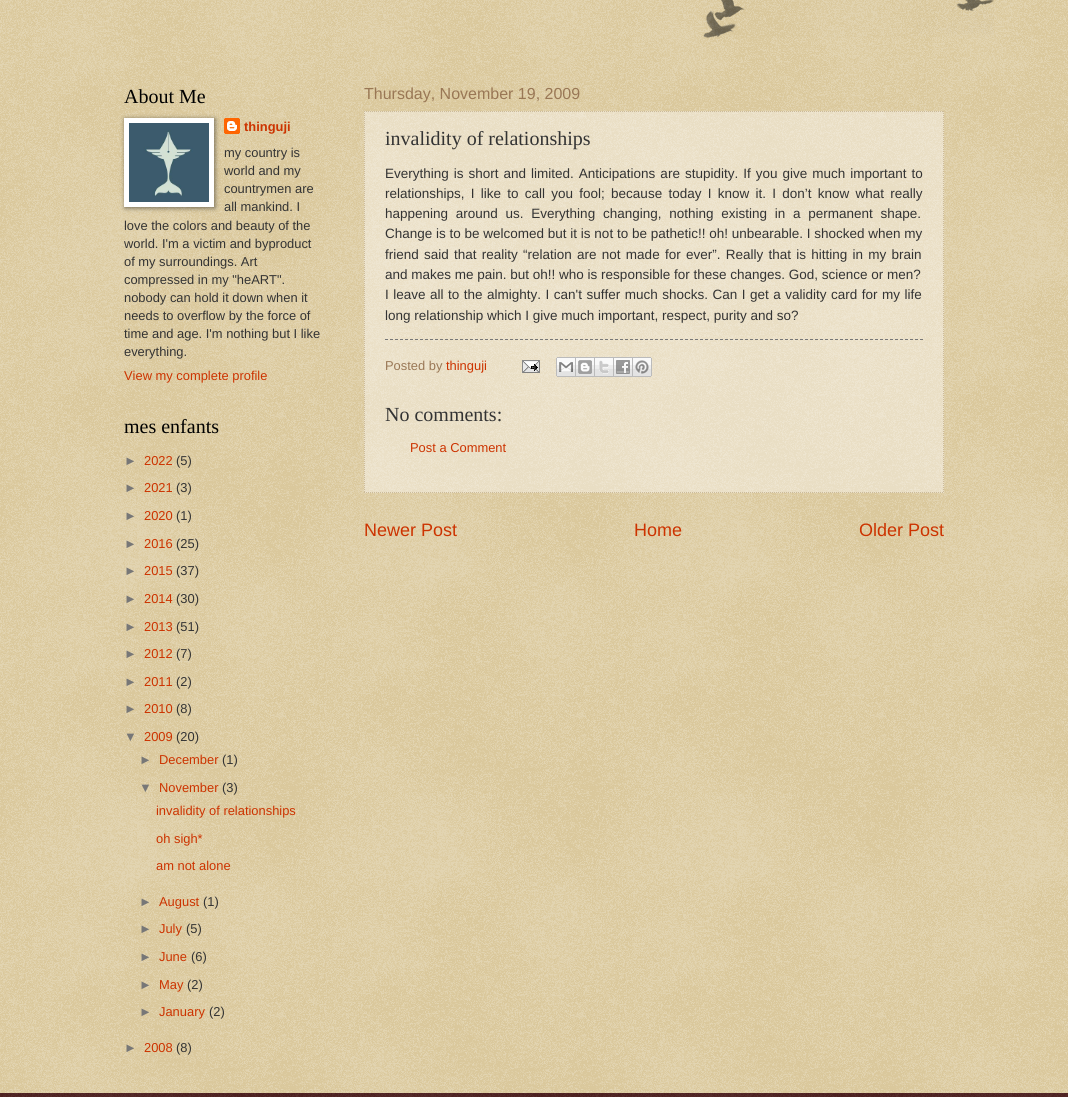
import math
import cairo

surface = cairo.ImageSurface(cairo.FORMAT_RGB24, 1068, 1097)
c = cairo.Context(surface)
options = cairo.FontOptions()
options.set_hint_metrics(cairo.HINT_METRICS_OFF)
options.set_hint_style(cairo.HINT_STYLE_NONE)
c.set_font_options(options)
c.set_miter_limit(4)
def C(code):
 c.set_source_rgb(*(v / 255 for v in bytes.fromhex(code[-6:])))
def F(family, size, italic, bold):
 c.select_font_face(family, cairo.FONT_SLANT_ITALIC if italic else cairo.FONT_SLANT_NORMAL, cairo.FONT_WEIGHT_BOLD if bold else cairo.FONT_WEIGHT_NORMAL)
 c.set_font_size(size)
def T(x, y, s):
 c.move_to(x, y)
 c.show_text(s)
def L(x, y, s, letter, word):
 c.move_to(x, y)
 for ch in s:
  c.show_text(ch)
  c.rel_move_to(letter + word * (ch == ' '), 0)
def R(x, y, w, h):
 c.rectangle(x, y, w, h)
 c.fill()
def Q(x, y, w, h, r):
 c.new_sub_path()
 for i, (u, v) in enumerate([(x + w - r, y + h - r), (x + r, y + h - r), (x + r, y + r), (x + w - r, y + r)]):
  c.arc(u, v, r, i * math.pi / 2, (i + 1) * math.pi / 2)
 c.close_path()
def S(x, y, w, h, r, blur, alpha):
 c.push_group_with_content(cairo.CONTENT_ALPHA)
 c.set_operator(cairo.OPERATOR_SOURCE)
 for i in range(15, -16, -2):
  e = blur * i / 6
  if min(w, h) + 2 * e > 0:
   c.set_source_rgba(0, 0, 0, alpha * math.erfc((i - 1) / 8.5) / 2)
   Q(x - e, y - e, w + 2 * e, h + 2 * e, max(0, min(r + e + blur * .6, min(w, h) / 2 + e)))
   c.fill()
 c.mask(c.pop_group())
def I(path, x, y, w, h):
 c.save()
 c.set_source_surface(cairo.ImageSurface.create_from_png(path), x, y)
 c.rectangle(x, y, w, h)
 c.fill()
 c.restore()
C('c0a154')
c.paint()
I('1.png',0,0,1068,1093)
I('2.png',703,0,291,38)
F('Liberation Serif',20,0,0)
C('000000')
T(124,103,'About Me')
C('000000')
S(125,119,90,89,0,2.5,.5)
C('ffffff')
R(124,118,90,89)
I('3.png',129,123,80,79)
I('4.png',224,118,16,16)
F('Liberation Sans',12.9,0,1)
C('cc3300')
T(244,131,'thinguji')
F('Liberation Sans',12.9,0,0)
C('333333')
T(224,157,'my country is')
T(224,175,'world and my')
T(224,193,'countrymen are')
T(224,211,'all mankind. I')
T(124,230,'love the colors and beauty of the')
T(124,248,'world. I\'m a victim and byproduct')
T(124,266,'of my surroundings. Art')
T(124,284,'compressed in my "heART".')
T(124,302,'nobody can hold it down when it')
T(124,320,'needs to overflow by the force of')
T(124,338,'time and age. I\'m nothing but I like')
T(124,356,'everything.')
C('cc3300')
T(124,380,'View my complete profile')
F('Liberation Serif',20,0,0)
C('000000')
T(124,433,'mes enfants')
F('Liberation Sans',12.9,0,0)
C('777777')
T(124,465,'►')
C('cc3300')
T(144,465,'2022')
C('333333')
T(176,465,'(5)')
C('777777')
T(124,492,'►')
C('cc3300')
T(144,492,'2021')
C('333333')
T(176,492,'(3)')
C('777777')
T(124,520,'►')
C('cc3300')
T(144,520,'2020')
C('333333')
T(176,520,'(1)')
C('777777')
T(124,548,'►')
C('cc3300')
T(144,548,'2016')
C('333333')
T(176,548,'(25)')
C('777777')
T(124,575,'►')
C('cc3300')
T(144,575,'2015')
C('333333')
T(176,575,'(37)')
C('777777')
T(124,603,'►')
C('cc3300')
T(144,603,'2014')
C('333333')
T(176,603,'(30)')
C('777777')
T(124,631,'►')
C('cc3300')
T(144,631,'2013')
C('333333')
T(176,631,'(51)')
C('777777')
T(124,658,'►')
C('cc3300')
T(144,658,'2012')
C('333333')
T(176,658,'(7)')
C('777777')
T(124,686,'►')
C('cc3300')
T(144,686,'2011')
C('333333')
T(176,686,'(2)')
C('777777')
T(124,713,'►')
C('cc3300')
T(144,713,'2010')
C('333333')
T(176,713,'(8)')
C('777777')
T(124,741,'▼')
C('cc3300')
T(144,741,'2009')
C('333333')
T(176,741,'(20)')
C('777777')
T(139,764,'►')
C('cc3300')
T(159,764,'December')
C('333333')
T(222,764,'(1)')
C('777777')
T(139,792,'▼')
C('cc3300')
T(159,792,'November')
C('333333')
T(222,792,'(3)')
C('cc3300')
T(156,815,'invalidity of relationships')
T(156,843,'oh sigh*')
T(156,870,'am not alone')
C('777777')
T(139,906,'►')
C('cc3300')
T(159,906,'August')
C('333333')
T(203,906,'(1)')
C('777777')
T(139,933,'►')
C('cc3300')
T(159,933,'July')
C('333333')
T(186,933,'(5)')
C('777777')
T(139,961,'►')
C('cc3300')
T(159,961,'June')
C('333333')
T(191,961,'(6)')
C('777777')
T(139,989,'►')
C('cc3300')
T(159,989,'May')
C('333333')
T(187,989,'(2)')
C('777777')
T(139,1016,'►')
C('cc3300')
T(159,1016,'January')
C('333333')
T(209,1016,'(2)')
C('777777')
T(124,1052,'►')
C('cc3300')
T(144,1052,'2008')
C('333333')
T(176,1052,'(8)')
F('Liberation Sans',16,0,0)
C('997755')
T(364,99,'Thursday, November 19, 2009')
c.set_source_rgba(1,1,1,0.4)
R(364,111,580,382)
c.new_path()
c.move_to(364,111.5)
c.line_to(944,111.5)
C('ccbb99')
c.set_line_width(1)
c.set_dash([1,1])
c.stroke()
c.new_path()
c.move_to(943.5,111)
c.line_to(943.5,493)
c.stroke()
c.new_path()
c.move_to(364,492.5)
c.line_to(944,492.5)
c.stroke()
c.new_path()
c.move_to(364.5,111)
c.line_to(364.5,493)
c.stroke()
F('Liberation Serif',20,0,0)
C('333333')
T(385,145,'invalidity of relationships')
F('Liberation Sans',13.5,0,0)
L(385,178,'Everything is short and limited. Anticipations are stupidity. If you give much important to',0,1.25)
L(385,198,'relationships, I like to call you fool; because today I know it. I don’t know what really',0,2.5)
L(385,218,'happening around us. Everything changing, nothing existing in a permanent shape.',0,4)
T(385,238,'Change is to be welcomed but it is not to be pathetic!! oh! unbearable. I shocked when my')
L(385,259,'friend said that reality “relation are not made for ever”. Really that is hitting in my brain',0,1.5)
T(385,279,'and makes me pain. but oh!! who is responsible for these changes. God, science or men?')
L(385,299,'I leave all to the almighty. I can\'t suffer much shocks. Can I get a validity card for my life',0,.75)
T(385,320,'long relationship which I give much important, respect, purity and so?')
c.new_path()
c.move_to(385,339.5)
c.line_to(923,339.5)
C('777777')
c.set_dash([3,2])
c.stroke()
F('Liberation Sans',12.9,0,0)
C('997755')
T(385,370,'Posted by')
C('cc3300')
T(446,370,'thinguji')
I('5.png',522,360,18,13)
I('6.png',556,357,20,20)
I('7.png',576,357,19,20)
I('8.png',595,357,19,20)
I('9.png',614,357,19,20)
I('10.png',633,357,19,20)
F('Liberation Serif',20,0,0)
C('333333')
T(385,421,'No comments:')
F('Liberation Sans',12.9,0,0)
C('cc3300')
T(410,452,'Post a Comment')
F('Liberation Sans',18,0,0)
T(364,536,'Newer Post')
T(634,536,'Home')
T(859,536,'Older Post')
C('330000')
R(0,1093,1068,4)
I('11.png',0,1093,1068,4)
surface.write_to_png('o.png')
